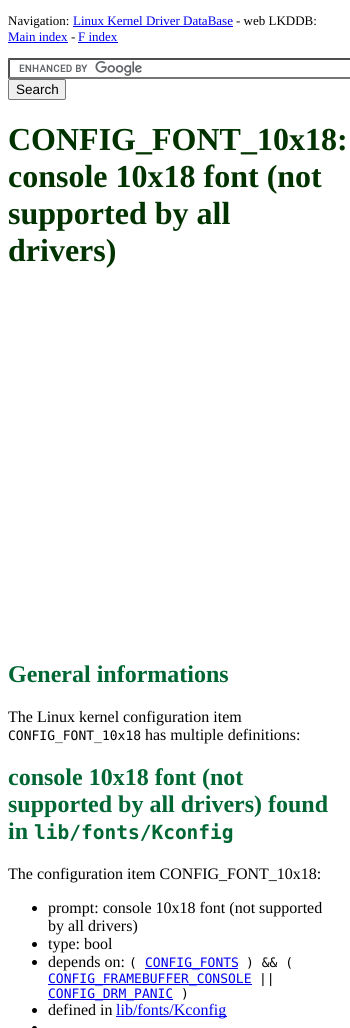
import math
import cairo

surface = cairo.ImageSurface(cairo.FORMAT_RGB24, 350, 1028)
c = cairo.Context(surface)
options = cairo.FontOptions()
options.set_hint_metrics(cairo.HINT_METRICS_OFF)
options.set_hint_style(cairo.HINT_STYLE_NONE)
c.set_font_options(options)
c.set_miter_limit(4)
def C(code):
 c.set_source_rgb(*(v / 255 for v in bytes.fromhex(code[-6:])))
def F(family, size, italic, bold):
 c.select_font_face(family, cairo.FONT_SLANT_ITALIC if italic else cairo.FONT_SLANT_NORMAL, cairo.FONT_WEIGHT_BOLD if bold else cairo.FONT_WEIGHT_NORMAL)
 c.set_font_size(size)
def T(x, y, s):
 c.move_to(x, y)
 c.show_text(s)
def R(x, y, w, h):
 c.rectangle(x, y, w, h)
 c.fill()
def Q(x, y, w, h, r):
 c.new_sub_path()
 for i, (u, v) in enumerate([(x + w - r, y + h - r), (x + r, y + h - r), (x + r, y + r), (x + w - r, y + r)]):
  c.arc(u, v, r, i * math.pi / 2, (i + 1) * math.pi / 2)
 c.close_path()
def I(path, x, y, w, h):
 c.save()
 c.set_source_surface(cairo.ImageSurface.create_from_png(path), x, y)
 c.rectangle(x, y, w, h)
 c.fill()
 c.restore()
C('ffffff')
c.paint()
F('Liberation Serif',13,0,0)
C('000000')
T(8,25,'Navigation:')
C('0000ee')
T(73,25,'Linux Kernel Driver DataBase')
R(73,26,160,1)
C('000000')
T(236,25,'- web LKDDB:')
C('0000ee')
T(8,41,'Main index')
R(8,42,60,1)
C('000000')
T(71,41,'-')
C('0000ee')
T(78,41,'F index')
R(78,42,40,1)
I('1.png',19,61,123,15)
C('4f4f4f')
c.new_path()
c.move_to(8,58)
c.line_to(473,58)
c.line_to(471,60)
c.line_to(10,60)
c.close_path()
c.fill()
C('767676')
c.new_path()
c.move_to(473,79)
c.line_to(8,79)
c.line_to(10,77)
c.line_to(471,77)
c.close_path()
c.fill()
C('4f4f4f')
c.new_path()
c.move_to(8,79)
c.line_to(8,58)
c.line_to(10,60)
c.line_to(10,77)
c.close_path()
c.fill()
C('efefef')
Q(8.5,79.5,57,20,1.5)
c.fill_preserve()
C('767676')
c.set_line_width(1)
c.stroke()
F('Liberation Sans',13.5,0,0)
C('000000')
T(16,94,'Search')
F('Liberation Serif',32,0,1)
C('003300')
T(8,150,'CONFIG_FONT_10x18:')
T(8,187,'console 10x18 font (not')
T(8,224,'supported by all')
T(8,261,'drivers)')
F('Liberation Serif',24,0,1)
C('006633')
T(8,682,'General informations')
F('Liberation Serif',16,0,0)
C('000000')
T(8,722,'The Linux kernel configuration item')
F('DejaVu Sans Mono',13,0,0)
T(8,740,'CONFIG_FONT_10x18')
F('Liberation Serif',16,0,0)
T(145,740,'has multiple definitions:')
F('Liberation Serif',24,0,1)
C('006633')
T(8,785,'console 10x18 font (not')
T(8,812,'supported by all drivers) found')
T(8,839,'in')
F('DejaVu Sans Mono',19.5,0,1)
T(34,839,'lib/fonts/Kconfig')
F('Liberation Serif',16,0,0)
C('000000')
T(8,879,'The configuration item CONFIG_FONT_10x18:')
c.new_path()
c.arc(34.5,908.5,2.5,0,2 * math.pi)
c.fill()
T(48,913,'prompt: console 10x18 font (not supported')
T(48,931,'by all drivers)')
c.new_path()
c.arc(34.5,944.5,2.5,0,2 * math.pi)
c.fill()
T(48,949,'type: bool')
c.new_path()
c.arc(34.5,962.5,2.5,0,2 * math.pi)
c.fill()
T(48,967,'depends on:')
F('DejaVu Sans Mono',13,0,0)
T(129,967,'(')
C('0000ee')
R(145,968,93,1)
T(145,967,'CONFIG_FONTS')
C('000000')
T(246,967,') && (')
C('0000ee')
R(48,984,204,1)
T(48,983,'CONFIG_FRAMEBUFFER_CONSOLE')
C('000000')
T(259,983,'||')
C('0000ee')
R(48,999,125,1)
T(48,998,'CONFIG_DRM_PANIC')
C('000000')
T(181,998,')')
c.new_path()
c.arc(34.5,1010.5,2.5,0,2 * math.pi)
c.fill()
F('Liberation Serif',16,0,0)
T(48,1015,'defined in')
C('0000ee')
R(116,1016,111,1)
T(116,1015,'lib/fonts/Kconfig')
C('000000')
c.new_path()
c.arc(34.5,1028.5,2.5,0,2 * math.pi)
c.fill()
surface.write_to_png('o.png')
